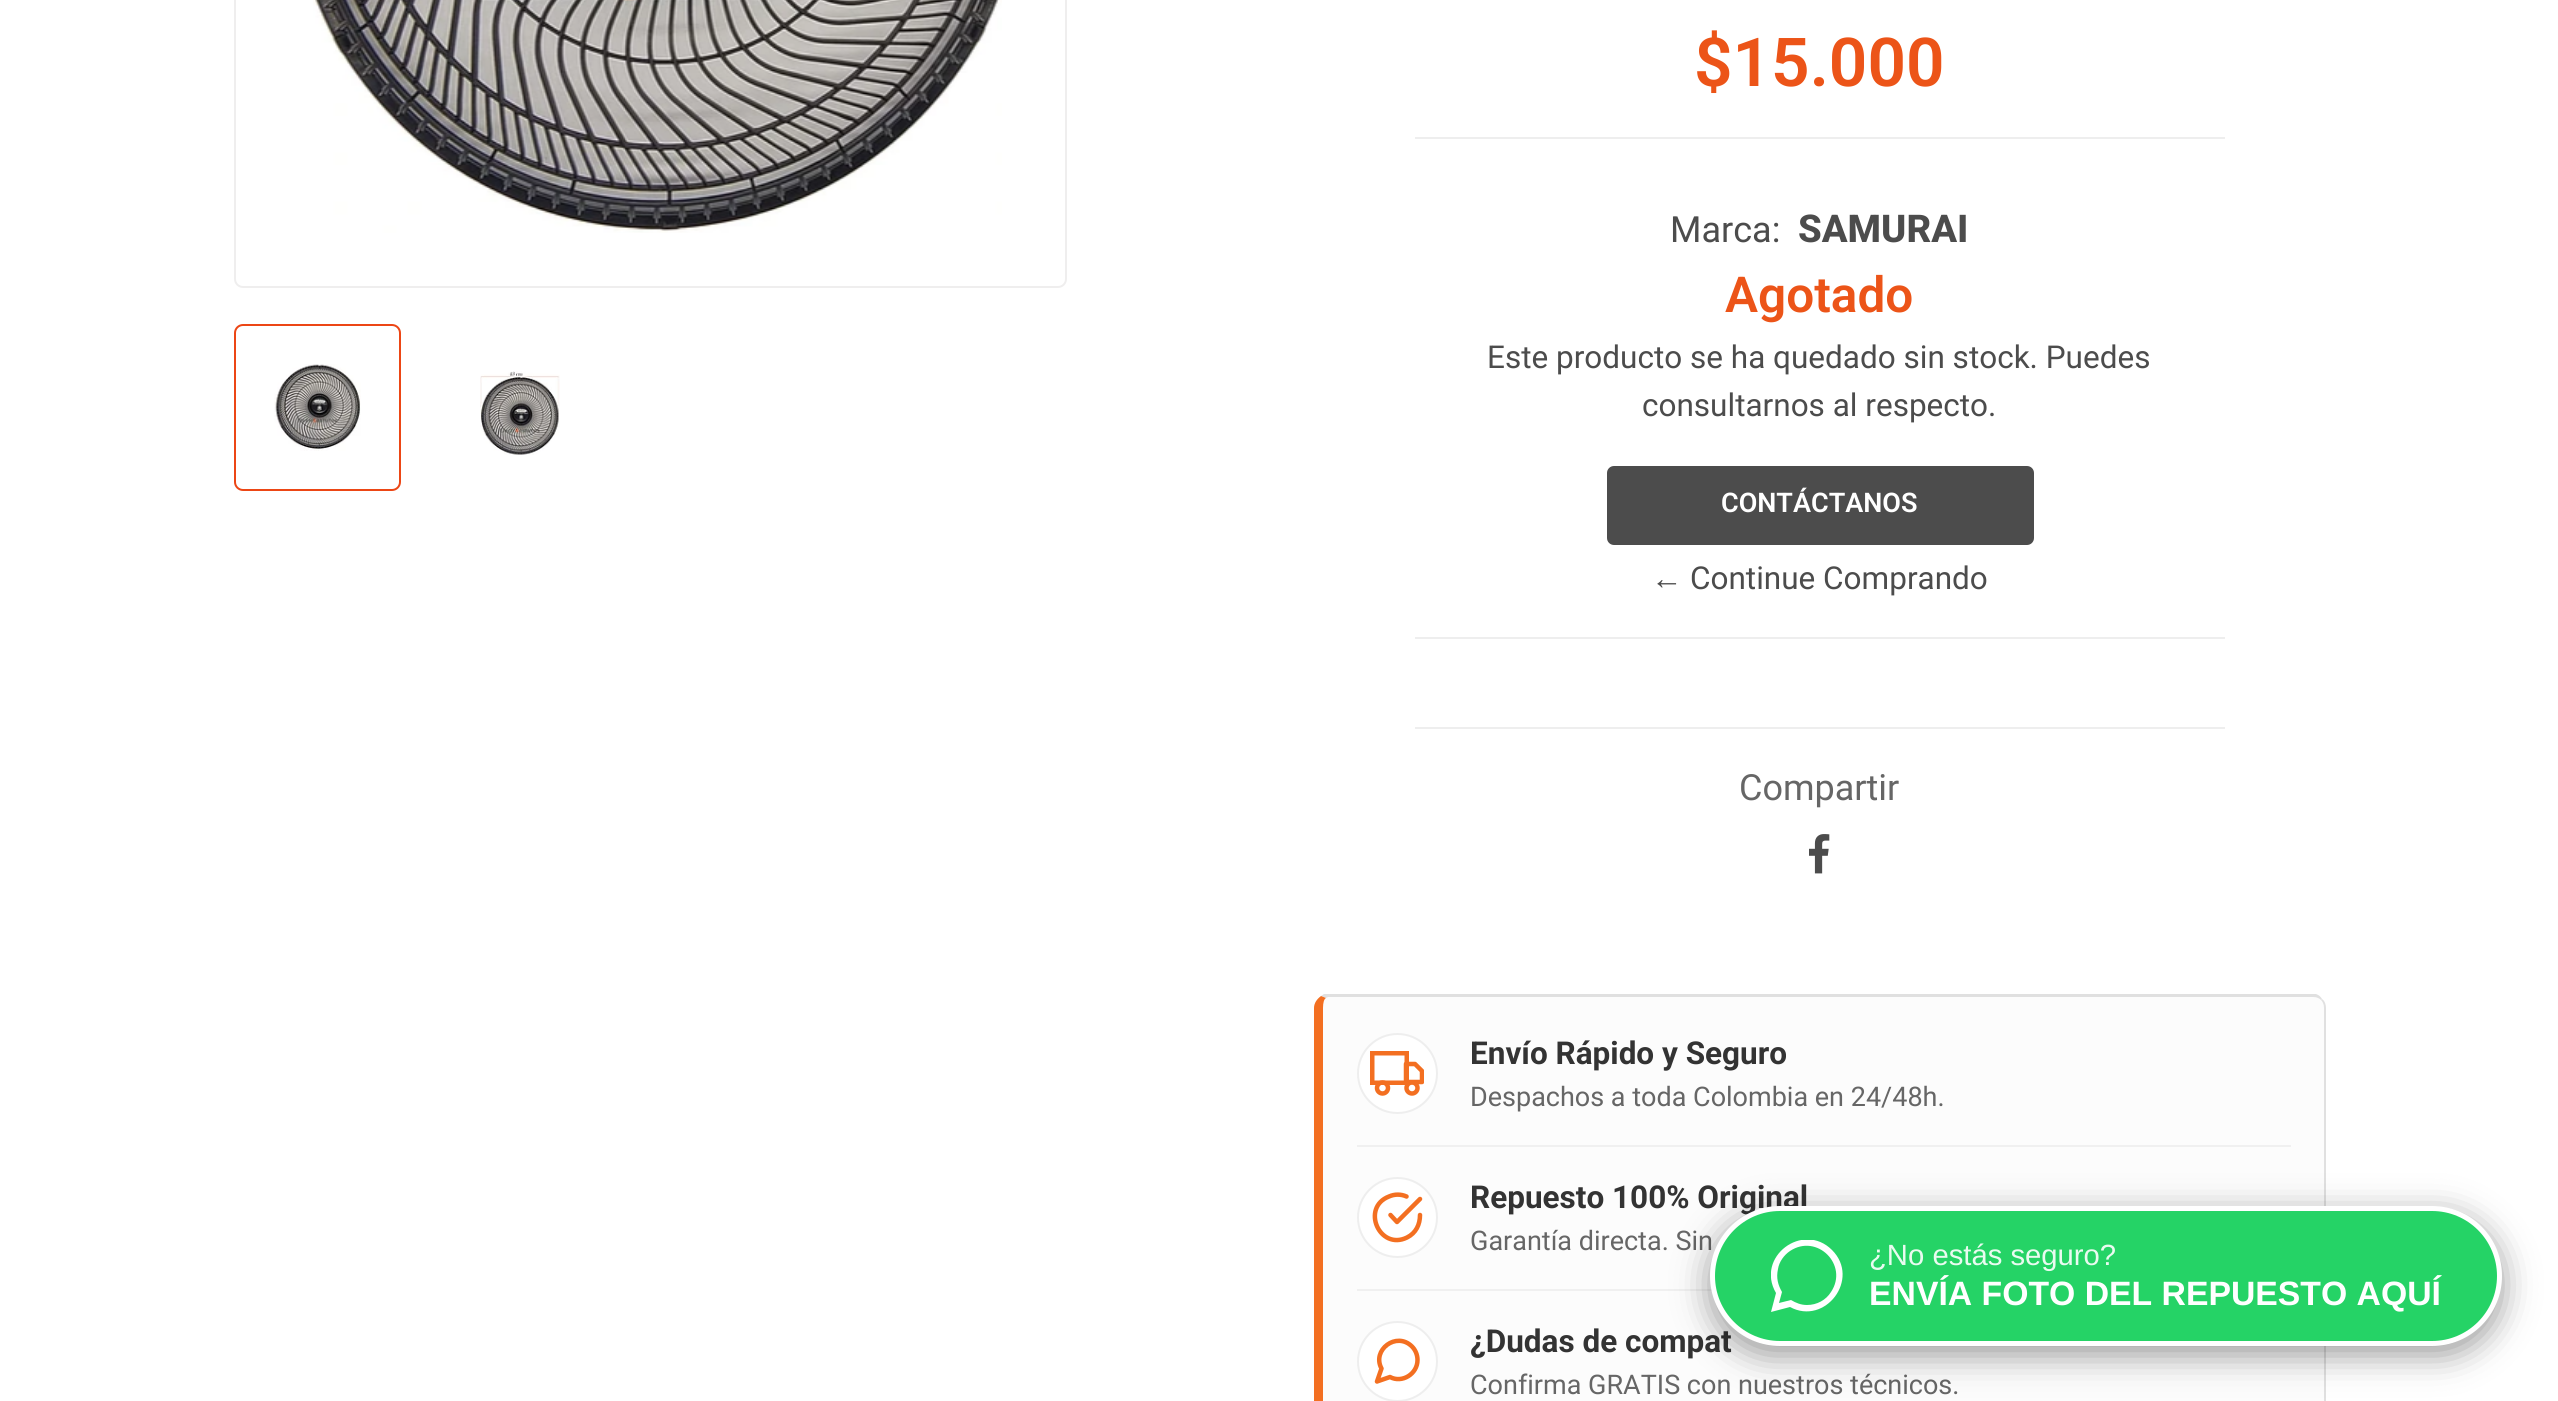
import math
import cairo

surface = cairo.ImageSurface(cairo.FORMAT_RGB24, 2558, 1401)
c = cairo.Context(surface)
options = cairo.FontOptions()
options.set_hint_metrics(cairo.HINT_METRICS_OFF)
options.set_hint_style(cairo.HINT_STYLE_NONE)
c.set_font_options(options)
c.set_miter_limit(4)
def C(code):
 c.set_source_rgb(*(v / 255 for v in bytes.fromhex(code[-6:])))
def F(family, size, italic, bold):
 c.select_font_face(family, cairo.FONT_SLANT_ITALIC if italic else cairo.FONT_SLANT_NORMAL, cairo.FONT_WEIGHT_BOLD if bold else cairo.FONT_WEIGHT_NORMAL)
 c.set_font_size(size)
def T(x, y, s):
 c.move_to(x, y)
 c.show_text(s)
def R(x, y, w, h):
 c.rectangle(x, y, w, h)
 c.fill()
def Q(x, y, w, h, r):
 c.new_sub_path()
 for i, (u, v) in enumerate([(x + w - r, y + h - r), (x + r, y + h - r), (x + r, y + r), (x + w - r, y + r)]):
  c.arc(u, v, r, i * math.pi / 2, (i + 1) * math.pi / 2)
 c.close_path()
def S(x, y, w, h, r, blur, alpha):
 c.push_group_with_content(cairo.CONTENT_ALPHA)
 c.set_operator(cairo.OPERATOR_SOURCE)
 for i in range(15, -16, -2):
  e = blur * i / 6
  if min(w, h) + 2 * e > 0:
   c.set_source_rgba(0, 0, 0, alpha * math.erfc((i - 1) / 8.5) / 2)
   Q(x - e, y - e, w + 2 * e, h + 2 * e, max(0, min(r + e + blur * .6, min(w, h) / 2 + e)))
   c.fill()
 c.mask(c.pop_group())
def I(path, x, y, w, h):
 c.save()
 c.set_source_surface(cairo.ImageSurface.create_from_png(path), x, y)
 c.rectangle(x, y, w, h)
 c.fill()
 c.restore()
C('ffffff')
c.paint()
Q(235,-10,831,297,8)
C('efeeee')
c.stroke()
I('1.png',313,0,689,233)
I('2.png',274,364,87,87)
Q(235,325,165,165,8)
C('ec4615')
c.stroke()
I('3.png',480,371,80,84)
C('eeeeee')
R(1415,137,810,2)
F('Roboto SemiBold',67.5,0,0)
C('ec5418')
T(1694,86,'$15.000')
F('Roboto',36,0,0)
C('4c4c4c')
T(1670,242,'Marca:')
F('Roboto ExtraBold',38.25,0,0)
T(1798,242,'SAMURAI')
C('eeeeee')
R(1415,637,810,2)
F('Roboto SemiBold',49.5,0,0)
C('ec5418')
T(1725,312,'Agotado')
F('Roboto',31.5,0,0)
C('4c4c4c')
T(1487,368,'Este producto se ha quedado sin stock. Puedes')
T(1642,416,'consultarnos al respecto.')
Q(1607,466,427,79,7)
c.fill()
F('Roboto SemiBold',27,0,0)
C('ffffff')
T(1721,512,'CONTÁCTANOS')
F('Liberation Serif',31.5,0,0)
C('4c4c4c')
T(1651,589,'←')
F('Roboto',31.5,0,0)
T(1690,589,'Continue Comprando')
C('eeeeee')
R(1415,727,810,2)
F('Roboto',36,0,0)
C('666666')
T(1739,800,'Compartir')
I('4.png',1809,834,21,40)
C('fcfcfc')
c.new_path()
c.move_to(1328,997)
c.line_to(2313,997)
c.curve_to(2319,997,2324,1002,2324,1008)
c.line_to(2324,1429)
c.curve_to(2324,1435,2319,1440,2313,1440)
c.line_to(1328,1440)
c.curve_to(1325,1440,1323,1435,1323,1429)
c.line_to(1323,1008)
c.curve_to(1323,1002,1325,997,1328,997)
c.close_path()
c.fill()
C('e0e0e0')
c.new_path()
c.move_to(1328,997)
c.line_to(1326,998)
c.line_to(1321,996)
c.line_to(1324,994)
c.line_to(2316,994)
c.curve_to(2319,995,2321,997,2322,999)
c.line_to(2321,1000)
c.curve_to(2319,998,2316,997,2313,997)
c.close_path()
c.fill()
c.new_path()
c.move_to(2322,999)
c.curve_to(2325,1001,2326,1005,2326,1008)
c.line_to(2326,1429)
c.curve_to(2326,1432,2325,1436,2322,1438)
c.line_to(2321,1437)
c.curve_to(2323,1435,2324,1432,2324,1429)
c.line_to(2324,1008)
c.curve_to(2324,1005,2323,1002,2321,1000)
c.close_path()
c.fill()
C('f36f21')
c.new_path()
c.move_to(1314,1008)
c.line_to(1314,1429)
c.curve_to(1314,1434,1317,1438,1321,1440)
c.line_to(1326,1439)
c.curve_to(1324,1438,1323,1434,1323,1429)
c.line_to(1323,1008)
c.curve_to(1323,1003,1324,999,1326,998)
c.line_to(1321,996)
c.curve_to(1317,999,1314,1003,1314,1008)
c.close_path()
c.fill()
C('f0f0f0')
R(1357,1145,934,2)
C('ffffff')
c.arc(1397.5,1073.5,39.5,0,2 * math.pi)
c.fill_preserve()
C('eeeeee')
c.stroke()
c.rectangle(1372.25,1053.25,34.5,29.5)
C('f36f21')
c.set_line_width(4.5)
c.stroke()
c.save()
c.rectangle(1370,1046,54,54)
c.clip()
c.new_path()
c.move_to(1406,1064)
c.line_to(1415,1064)
c.line_to(1422,1071)
c.line_to(1422,1082)
c.line_to(1406,1082)
c.close_path()
c.set_line_cap(cairo.LINE_CAP_ROUND)
c.set_line_join(cairo.LINE_JOIN_ROUND)
c.stroke()
c.restore()
c.arc(1382.5,1088,5.5,0,2 * math.pi)
c.stroke()
c.arc(1412,1088,5.5,0,2 * math.pi)
c.stroke()
F('Roboto',31.5,0,1)
C('333333')
T(1470,1064,'Envío Rápido y Seguro')
F('Roboto',27,0,0)
C('666666')
T(1470,1106,'Despachos a toda Colombia en 24/48h.')
C('f0f0f0')
R(1357,1289,355,2)
C('ffffff')
c.new_path()
c.arc(1397.5,1217.5,39.5,0,2 * math.pi)
c.fill_preserve()
C('eeeeee')
c.set_line_width(2)
c.stroke()
c.new_path()
c.move_to(1420,1215)
c.curve_to(1420,1224.5,1416,1233,1407,1237.5)
c.curve_to(1379.5,1251,1360.5,1207.5,1389,1196.5)
c.curve_to(1394.5,1194,1401,1194,1406.5,1196.5)
c.move_to(1420,1199)
c.line_to(1397,1222)
c.line_to(1390.5,1215)
C('f36f21')
c.set_line_width(4.5)
c.set_line_cap(cairo.LINE_CAP_ROUND)
c.set_line_join(cairo.LINE_JOIN_ROUND)
c.stroke()
F('Roboto',31.5,0,1)
C('333333')
T(1470,1208,'Repuesto 100% Original')
F('Roboto',27,0,0)
C('666666')
T(1470,1250,'Garantía directa. Sin')
C('ffffff')
c.new_path()
c.arc(1397.5,1361.5,39.5,0,2 * math.pi)
c.fill_preserve()
C('eeeeee')
c.set_line_width(2)
c.set_line_cap(cairo.LINE_CAP_BUTT)
c.set_line_join(cairo.LINE_JOIN_MITER)
c.stroke()
c.new_path()
c.move_to(1417.5,1360)
c.curve_to(1417.5,1374,1402,1383.5,1390,1377)
c.line_to(1377,1381.5)
c.line_to(1381.5,1368.5)
c.curve_to(1371.5,1350,1396.5,1331,1412,1346.5)
c.curve_to(1415.5,1350,1417.5,1355,1417.5,1360)
c.close_path()
C('f36f21')
c.set_line_width(4.5)
c.set_line_cap(cairo.LINE_CAP_ROUND)
c.set_line_join(cairo.LINE_JOIN_ROUND)
c.stroke()
F('Roboto',31.5,0,1)
C('333333')
T(1470,1352,'¿Dudas de compat')
F('Roboto',27,0,0)
C('666666')
T(1470,1394,'Confirma GRATIS con nuestros técnicos.')
C('000000')
S(1710,1215,792,140,70,17,.4)
C('25d366')
Q(1712.5,1208.5,787,135,67.5)
c.fill_preserve()
C('ffffff')
c.set_line_width(5)
c.set_line_cap(cairo.LINE_CAP_BUTT)
c.set_line_join(cairo.LINE_JOIN_MITER)
c.stroke()
c.save()
c.rectangle(1771,1240,72,72)
c.clip()
c.new_path()
c.move_to(1832,1250)
c.curve_to(1803,1221,1755,1257,1776,1293)
c.line_to(1771,1312)
c.line_to(1790,1307)
c.curve_to(1825,1326,1861,1279,1832,1250)
c.close_path()
c.move_to(1807,1305)
c.curve_to(1801,1305,1796,1303,1791,1300)
c.line_to(1779,1303)
c.line_to(1782,1292)
c.curve_to(1778,1285,1776,1278,1778,1269)
c.curve_to(1779,1262,1784,1255,1790,1251)
c.curve_to(1817,1233,1849,1265,1831,1292)
c.curve_to(1826,1300,1817,1305,1807,1305)
c.close_path()
c.fill()
c.restore()
F('Liberation Sans',29.25,0,0)
C('e9fbf0')
T(1869,1265,'¿No estás seguro?')
F('Liberation Sans',33.75,0,1)
C('ffffff')
T(1869,1305,'ENVÍA FOTO DEL REPUESTO AQUÍ')
surface.write_to_png('o.png')
